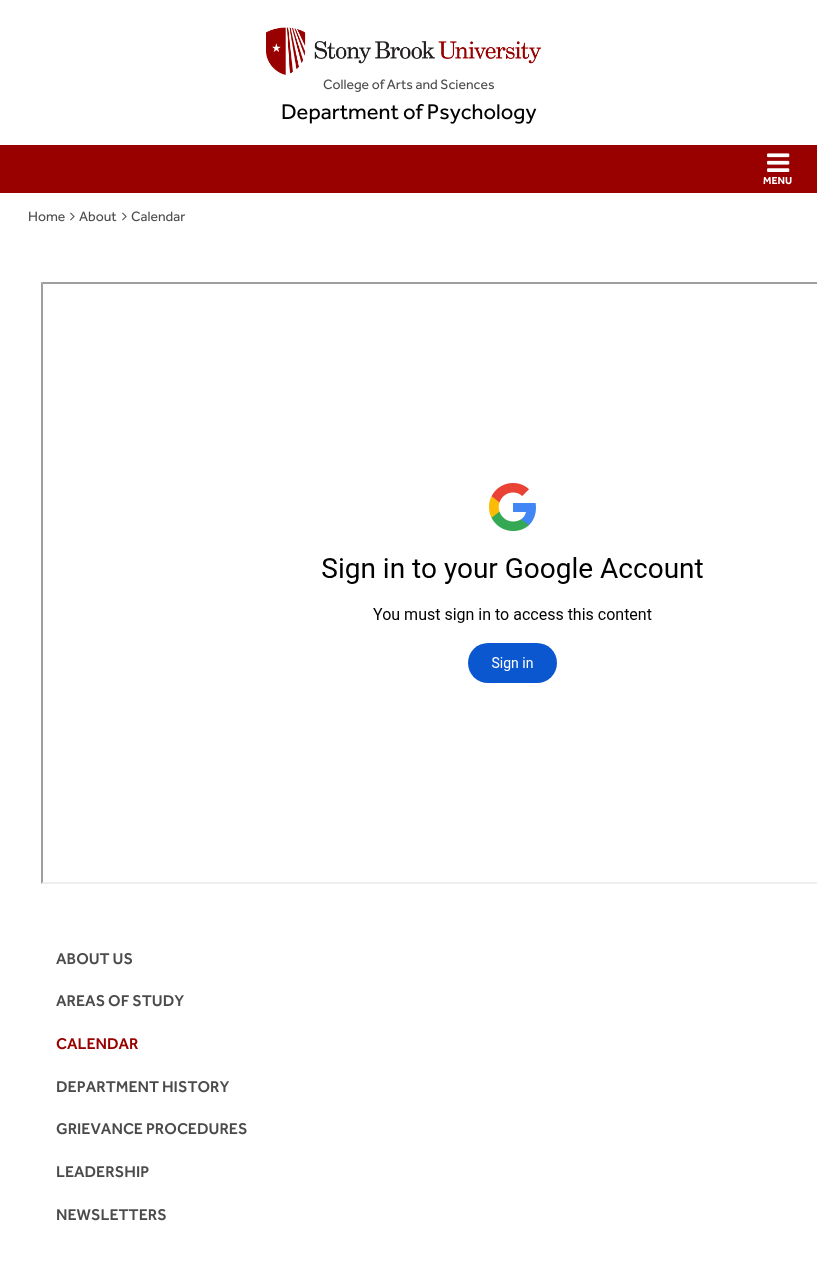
import math
import cairo

surface = cairo.ImageSurface(cairo.FORMAT_RGB24, 817, 1261)
c = cairo.Context(surface)
options = cairo.FontOptions()
options.set_hint_metrics(cairo.HINT_METRICS_OFF)
options.set_hint_style(cairo.HINT_STYLE_NONE)
c.set_font_options(options)
c.set_miter_limit(4)
def C(code):
 c.set_source_rgb(*(v / 255 for v in bytes.fromhex(code[-6:])))
def F(family, size, italic, bold):
 c.select_font_face(family, cairo.FONT_SLANT_ITALIC if italic else cairo.FONT_SLANT_NORMAL, cairo.FONT_WEIGHT_BOLD if bold else cairo.FONT_WEIGHT_NORMAL)
 c.set_font_size(size)
def T(x, y, s):
 c.move_to(x, y)
 c.show_text(s)
def R(x, y, w, h):
 c.rectangle(x, y, w, h)
 c.fill()
def I(path, x, y, w, h):
 c.save()
 c.set_source_surface(cairo.ImageSurface.create_from_png(path), x, y)
 c.rectangle(x, y, w, h)
 c.fill()
 c.restore()
C('ffffff')
c.paint()
I('1.png',266,27,275,48)
F('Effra',14,0,0)
C('4b4b4b')
T(323,89,'College of Arts and Sciences')
F('Effra',22,0,0)
C('000000')
T(281,119,'Department of Psychology')
C('990000')
R(0,145,817,48)
I('2.png',767,153,23,19)
F('Effra',10.5,0,1)
C('ffffff')
T(763,184,'MENU')
F('Effra',14,0,0)
C('4b4b4b')
T(28,221,'Home')
I('3.png',70,212,5,9)
T(79,221,'About')
I('3.png',122,212,5,9)
T(131,221,'Calendar')
C('9f9f9f')
c.new_path()
c.move_to(41,282)
c.line_to(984,282)
c.line_to(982,284)
c.line_to(43,284)
c.close_path()
c.fill()
C('eeeeee')
c.new_path()
c.move_to(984,884)
c.line_to(41,884)
c.line_to(43,882)
c.line_to(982,882)
c.close_path()
c.fill()
C('9f9f9f')
c.new_path()
c.move_to(41,884)
c.line_to(41,282)
c.line_to(43,284)
c.line_to(43,882)
c.close_path()
c.fill()
I('4.png',322,483,381,200)
F('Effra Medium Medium',16.1,0,0)
C('4b4b4b')
T(56,964,'ABOUT US')
T(56,1006,'AREAS OF STUDY')
C('990000')
T(56,1049,'CALENDAR')
C('4b4b4b')
T(56,1092,'DEPARTMENT HISTORY')
T(56,1134,'GRIEVANCE PROCEDURES')
T(56,1177,'LEADERSHIP')
T(56,1220,'NEWSLETTERS')
surface.write_to_png('o.png')
